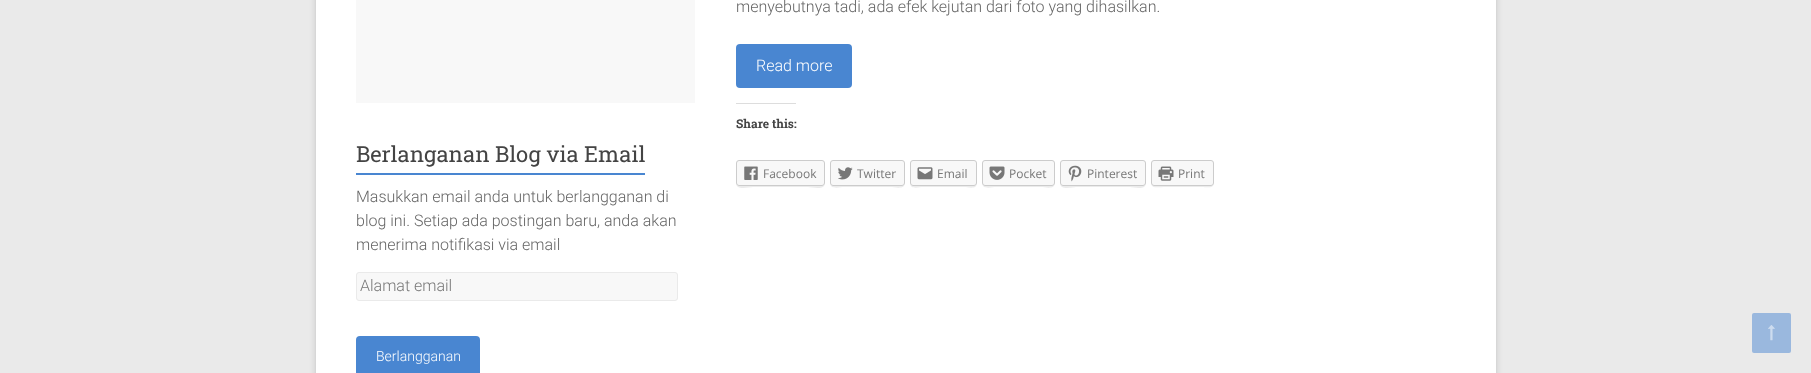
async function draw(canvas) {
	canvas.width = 1811;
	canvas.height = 373;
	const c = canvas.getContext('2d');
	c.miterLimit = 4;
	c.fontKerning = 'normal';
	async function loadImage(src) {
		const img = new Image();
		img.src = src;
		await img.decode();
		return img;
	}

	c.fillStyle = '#eaeaea';
	c.fillRect(0, 0, 1811, 373);
	c.fillStyle = '#6464644d';
	c.filter = 'blur(3px)';
	c.beginPath();
	c.rect(316, -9, 1180, 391);
	c.fill();
	c.filter = 'none';
	c.fillStyle = '#fff';
	c.fillRect(316, 0, 1180, 373);
	c.font = '300 16px Roboto';
	c.fillStyle = '#666';
	c.fillText('menyebutnya tadi, ada efek kejutan dari foto yang dihasilkan.', 736, 12);
	c.fillStyle = '#4986d1';
	c.beginPath();
	c.roundRect(736, 44, 116, 44, 4);
	c.fill();
	c.fillStyle = '#fff';
	c.fillText('Read more', 756, 71);
	c.fillStyle = '#ddd';
	c.fillRect(736, 103, 60, 1);
	c.font = 'bold 12px Roboto Slab';
	c.fillStyle = '#444';
	c.fillText('Share this:', 736, 128);
	c.fillStyle = '#ebebeb';
	c.beginPath();
	c.moveTo(736, 183);
	c.bezierCurveTo(736, 191, 749, 187, 753, 187);
	c.lineTo(808, 187);
	c.bezierCurveTo(812, 187, 825, 191, 825, 183);
	c.bezierCurveTo(825, 185, 824, 186, 822, 186);
	c.lineTo(739, 186);
	c.bezierCurveTo(737, 186, 736, 185, 736, 183);
	c.closePath();
	c.fill();
	c.fillStyle = '#f8f8f8';
	c.beginPath();
	c.roundRect(736.5, 160.5, 88, 25, 2.5);
	c.fill();
	c.strokeStyle = '#ccc';
	c.stroke();
	c.drawImage(await loadImage('img1.png'), 744, 166, 14, 14);
	c.font = '12px Open Sans';
	c.fillStyle = '#777';
	c.fillText('Facebook', 763, 178);
	c.fillStyle = '#ebebeb';
	c.beginPath();
	c.moveTo(830, 183);
	c.bezierCurveTo(830, 190, 840, 187, 844, 187);
	c.lineTo(890, 187);
	c.bezierCurveTo(895, 187, 905, 190, 905, 183);
	c.bezierCurveTo(905, 185, 904, 186, 902, 186);
	c.lineTo(833, 186);
	c.bezierCurveTo(831, 186, 830, 185, 830, 183);
	c.closePath();
	c.fill();
	c.fillStyle = '#f8f8f8';
	c.beginPath();
	c.roundRect(830.5, 160.5, 74, 25, 2.5);
	c.fill();
	c.stroke();
	c.drawImage(await loadImage('img2.png'), 838, 167, 15, 13);
	c.fillStyle = '#777';
	c.fillText('Twitter', 857, 178);
	c.fillStyle = '#ebebeb';
	c.beginPath();
	c.moveTo(910, 183);
	c.bezierCurveTo(910, 190, 919, 187, 923, 187);
	c.lineTo(964, 187);
	c.bezierCurveTo(968, 187, 977, 190, 977, 183);
	c.bezierCurveTo(977, 185, 976, 186, 974, 186);
	c.lineTo(913, 186);
	c.bezierCurveTo(911, 186, 910, 185, 910, 183);
	c.closePath();
	c.fill();
	c.fillStyle = '#f8f8f8';
	c.beginPath();
	c.roundRect(910.5, 160.5, 66, 25, 2.5);
	c.fill();
	c.stroke();
	c.drawImage(await loadImage('img3.png'), 917, 167, 16, 13);
	c.fillStyle = '#777';
	c.fillText('Email', 937, 178);
	c.fillStyle = '#ebebeb';
	c.beginPath();
	c.moveTo(982, 183);
	c.bezierCurveTo(982, 190, 992, 187, 996, 187);
	c.lineTo(1041, 187);
	c.bezierCurveTo(1045, 187, 1055, 190, 1055, 183);
	c.bezierCurveTo(1055, 185, 1054, 186, 1052, 186);
	c.lineTo(985, 186);
	c.bezierCurveTo(983, 186, 982, 185, 982, 183);
	c.closePath();
	c.fill();
	c.fillStyle = '#f8f8f8';
	c.beginPath();
	c.roundRect(982.5, 160.5, 72, 25, 2.5);
	c.fill();
	c.stroke();
	c.drawImage(await loadImage('img4.png'), 989, 166, 16, 14);
	c.fillStyle = '#777';
	c.fillText('Pocket', 1009, 178);
	c.fillStyle = '#ebebeb';
	c.beginPath();
	c.moveTo(1060, 183);
	c.bezierCurveTo(1060, 191, 1073, 187, 1076, 187);
	c.lineTo(1130, 187);
	c.bezierCurveTo(1133, 187, 1146, 191, 1146, 183);
	c.bezierCurveTo(1146, 185, 1145, 186, 1143, 186);
	c.lineTo(1063, 186);
	c.bezierCurveTo(1061, 186, 1060, 185, 1060, 183);
	c.closePath();
	c.fill();
	c.fillStyle = '#f8f8f8';
	c.beginPath();
	c.roundRect(1060.5, 160.5, 85, 25, 2.5);
	c.fill();
	c.stroke();
	c.drawImage(await loadImage('img5.png'), 1068, 165, 14, 17);
	c.fillStyle = '#777';
	c.fillText('Pinterest', 1087, 178);
	c.fillStyle = '#ebebeb';
	c.beginPath();
	c.moveTo(1151, 183);
	c.bezierCurveTo(1151, 189, 1159, 187, 1164, 187);
	c.lineTo(1202, 187);
	c.bezierCurveTo(1206, 187, 1214, 189, 1214, 183);
	c.bezierCurveTo(1214, 185, 1213, 186, 1211, 186);
	c.lineTo(1154, 186);
	c.bezierCurveTo(1152, 186, 1151, 185, 1151, 183);
	c.closePath();
	c.fill();
	c.fillStyle = '#f8f8f8';
	c.beginPath();
	c.roundRect(1151.5, 160.5, 62, 25, 2.5);
	c.fill();
	c.stroke();
	c.drawImage(await loadImage('img6.png'), 1158, 166, 16, 15);
	c.fillStyle = '#777';
	c.fillText('Print', 1178, 178);
	c.fillStyle = '#f8f8f8';
	c.fillRect(356, 0, 339, 103);
	c.font = '22px Roboto Slab';
	c.fillStyle = '#444';
	c.fillText('Berlanganan Blog via Email', 356, 162);
	c.fillStyle = '#4986d1';
	c.fillRect(356, 173, 289, 2);
	c.font = '300 16px Roboto';
	c.fillStyle = '#666';
	for (const [text, x, y] of [
		['Masukkan email anda untuk berlangganan di', 356, 202],
		['blog ini. Setiap ada postingan baru, anda akan', 356, 226],
		['menerima notifikasi via email', 356, 250],
	]) {
		c.fillText(text, x, y);
	}
	c.fillStyle = '#f8f8f8';
	c.beginPath();
	c.roundRect(356.5, 272.5, 321, 28, 2.5);
	c.fill();
	c.strokeStyle = '#eaeaea';
	c.stroke();
	c.fillStyle = '#777';
	c.fillText('Alamat email', 360, 291);
	c.fillStyle = '#4986d1';
	c.beginPath();
	c.roundRect(356, 336, 124, 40, 4);
	c.fill();
	c.font = '300 14px Roboto';
	c.fillStyle = '#fff';
	c.fillText('Berlangganan', 376, 361);
	c.fillStyle = '#9ab8de';
	c.beginPath();
	c.roundRect(1752, 313, 39, 40, 2);
	c.fill();
	c.drawImage(await loadImage('img7.png'), 1768, 325, 7, 16);
}

draw(document.querySelector('canvas'));
